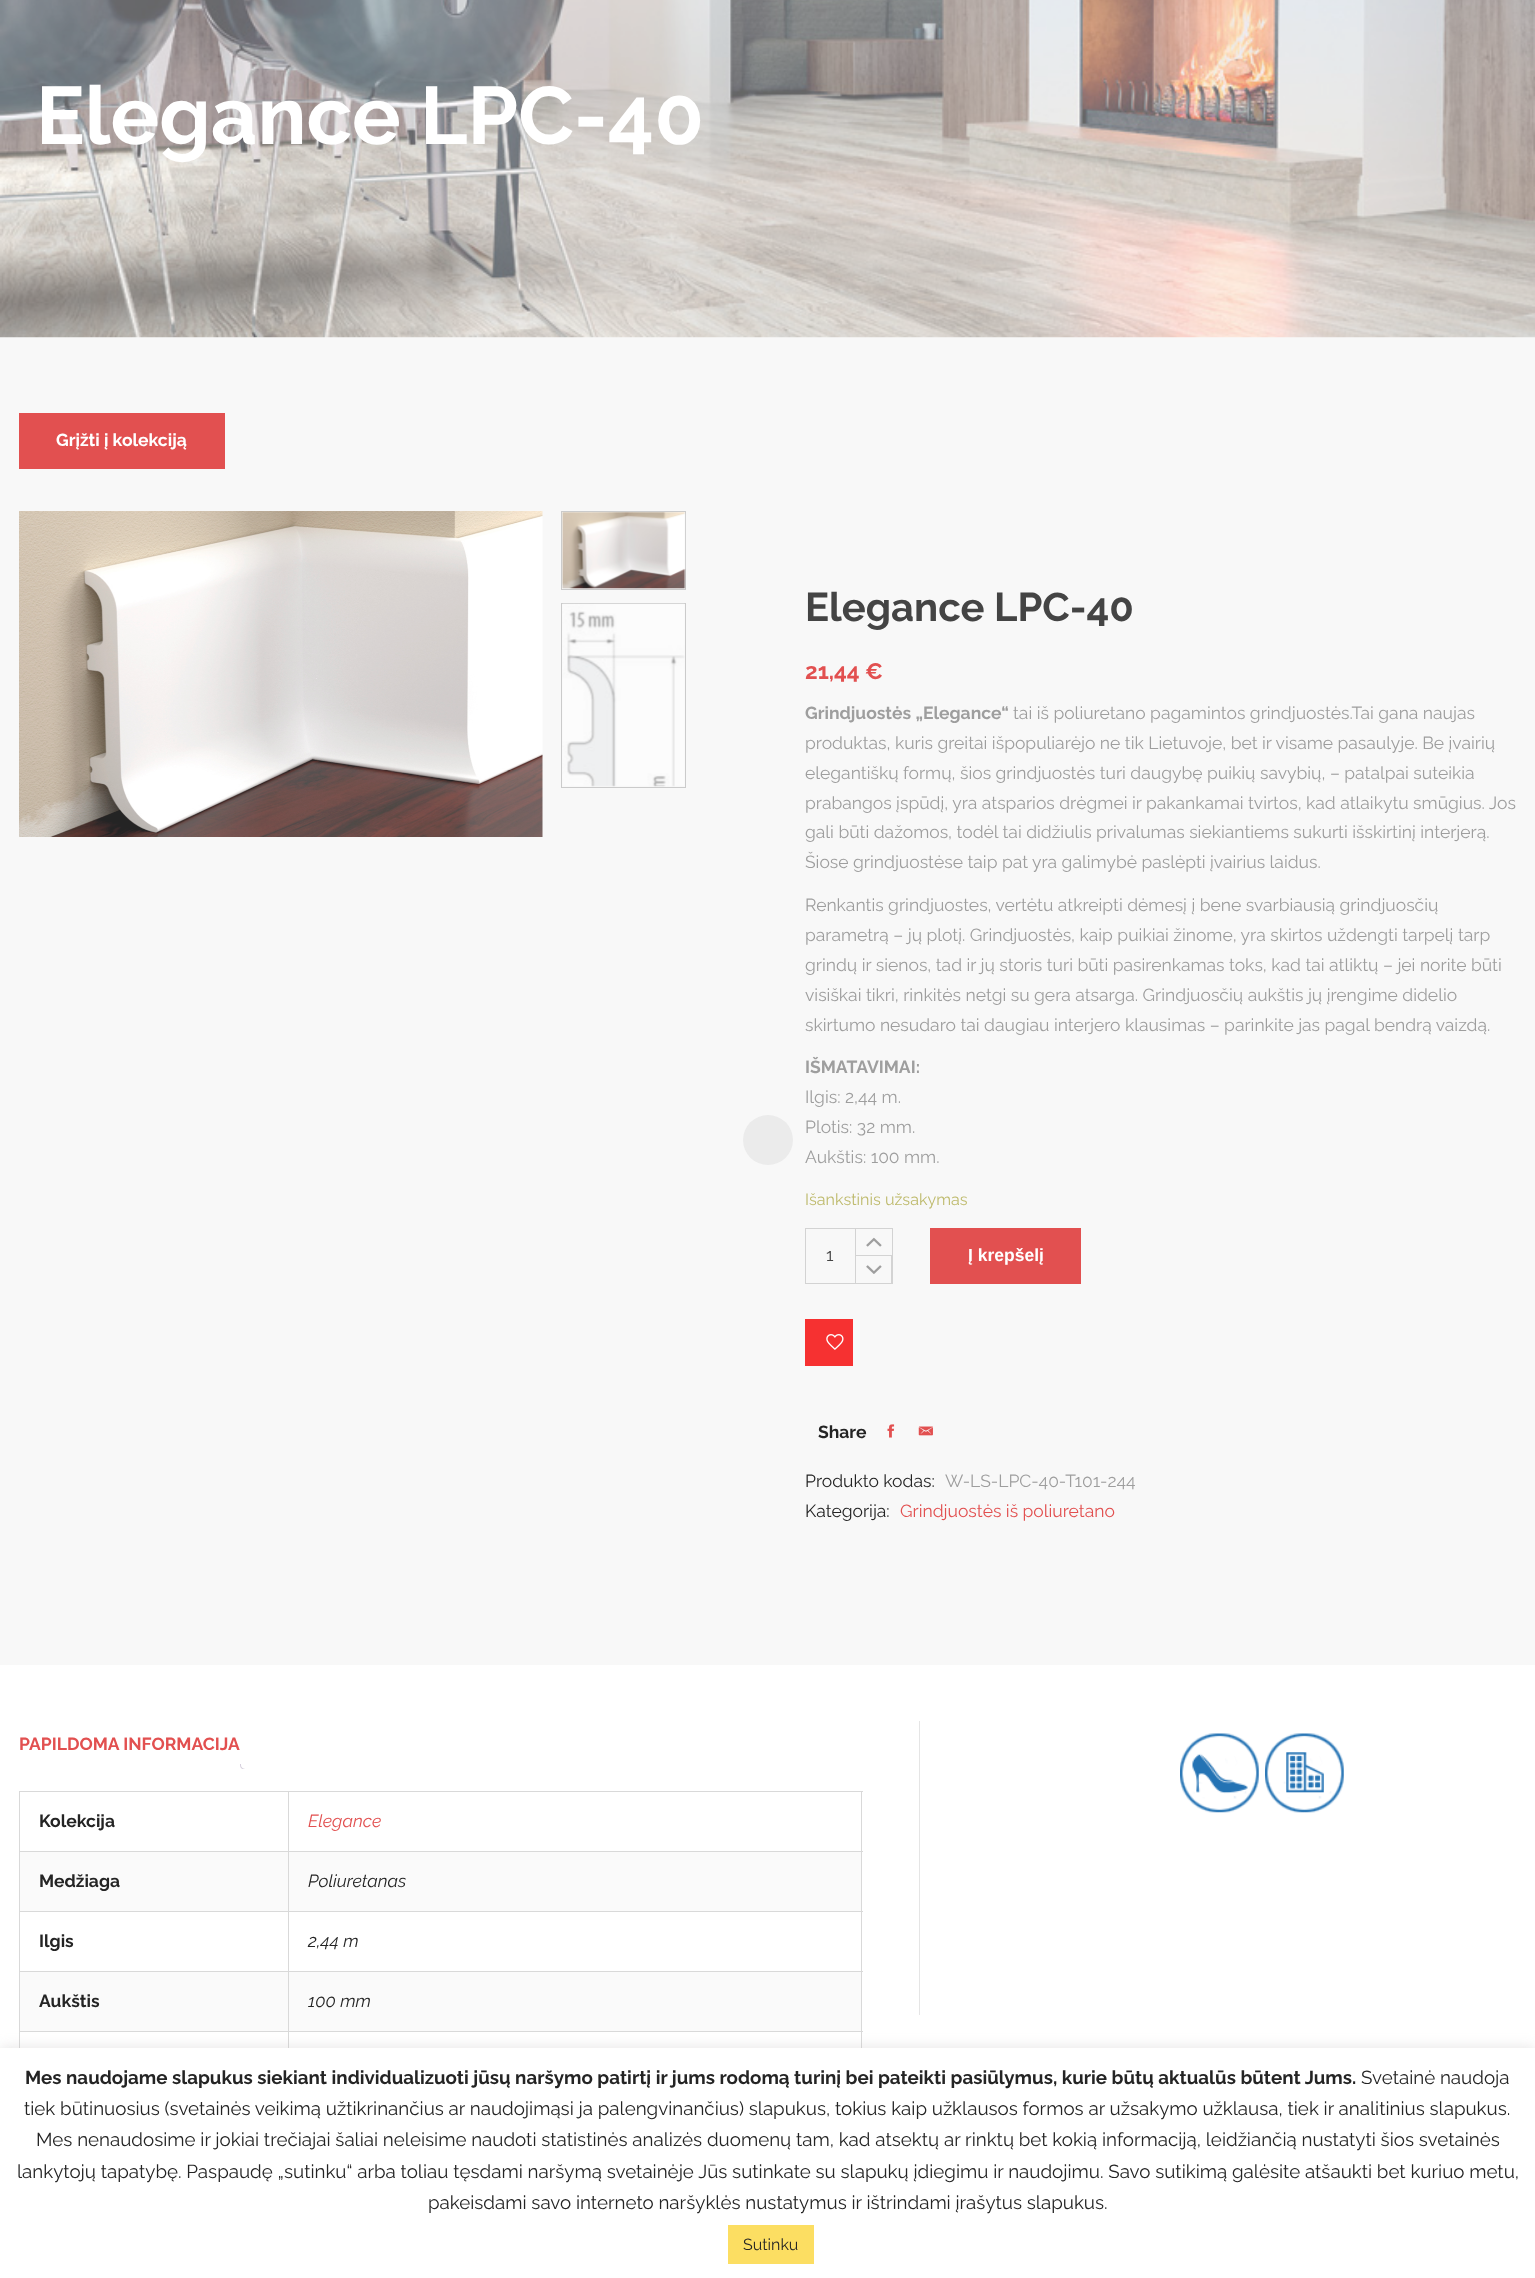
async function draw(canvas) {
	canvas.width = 1535;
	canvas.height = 2278;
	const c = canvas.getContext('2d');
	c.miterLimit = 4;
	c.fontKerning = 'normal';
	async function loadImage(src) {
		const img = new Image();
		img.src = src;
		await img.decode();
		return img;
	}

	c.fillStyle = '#fff';
	c.fillRect(0, 0, 1535, 2278);
	c.fillStyle = '#f9f9f9';
	c.fillRect(0, 337, 1535, 1);
	c.drawImage(await loadImage('img1.png'), 0, 0, 1535, 338);
	c.font = 'bold 81.25px Raleway';
	c.fillStyle = '#fff';
	c.fillText('Elegance LPC-40', 36, 144);
	c.fillStyle = '#f8f8f8';
	c.fillRect(0, 338, 1535, 1327);
	c.fillStyle = '#e25050';
	c.fillRect(19, 413, 206, 56);
	c.font = 'bold 17.5px Raleway';
	c.fillStyle = '#fff';
	c.fillText('Grįžti į kolekciją', 56, 446);
	c.drawImage(await loadImage('img2.png'), 19, 511, 524, 326);
	c.strokeStyle = '#cbcbcb';
	c.strokeRect(561.5, 511.5, 124, 78);
	c.drawImage(await loadImage('img3.png'), 562, 512, 124, 77);
	c.strokeRect(561.5, 603.5, 124, 184);
	c.drawImage(await loadImage('img4.png'), 562, 603, 123, 184);
	c.font = 'bold 40px Raleway';
	c.fillStyle = '#444';
	c.fillText('Elegance LPC-40', 805, 621);
	c.font = 'bold 22.5px Raleway';
	c.fillStyle = '#e25050';
	c.fillText('21,44 €', 805, 679);
	c.font = 'bold 17.5px Raleway';
	c.fillStyle = '#9e9e9e';
	c.fillText('Grindjuostės „Elegance“', 805, 719);
	c.font = '17.5px Raleway';
	for (const [text, x, y] of [
		['tai iš poliuretano pagamintos grindjuostės.Tai gana naujas', 1013, 719],
		['produktas, kuris greitai išpopuliarėjo ne tik Lietuvoje, bet ir visame pasaulyje. Be įvairių', 805, 749],
		['elegantiškų formų, šios grindjuostės turi daugybę puikių savybių, – patalpai suteikia', 805, 779],
		['prabangos įspūdį, yra atsparios drėgmei ir pakankamai tvirtos, kad atlaikytu smūgius. Jos', 805, 809],
		['gali būti dažomos, todėl tai didžiulis privalumas siekiantiems sukurti išskirtinį interjerą.', 805, 838],
		['Šiose grindjuostėse taip pat yra galimybė paslėpti įvairius laidus.', 805, 868],
		['Renkantis grindjuostes, vertėtu atkreipti dėmesį į bene svarbiausią grindjuosčių', 805, 911],
		['parametrą – jų plotį. Grindjuostės, kaip puikiai žinome, yra skirtos uždengti tarpelį tarp', 805, 941],
		['grindų ir sienos, tad ir jų storis turi būti pasirenkamas toks, kad tai atliktų – jei norite būti', 805, 971],
		['visiškai tikri, rinkitės netgi su gera atsarga. Grindjuosčių aukštis jų įrengime didelio', 805, 1001],
		['skirtumo nesudaro tai daugiau interjero klausimas – parinkite jas pagal bendrą vaizdą.', 805, 1031],
	]) {
		c.fillText(text, x, y);
	}
	c.font = 'bold 17.5px Raleway';
	c.fillText('IŠMATAVIMAI:', 805, 1073);
	c.font = '17.5px Raleway';
	for (const [text, x, y] of [
		['Ilgis: 2,44 m.', 805, 1103],
		['Plotis: 32 mm.', 805, 1133],
		['Aukštis: 100 mm.', 805, 1163],
	]) {
		c.fillText(text, x, y);
	}
	c.font = '16.1px Raleway';
	c.fillStyle = '#beba6c';
	c.fillText('Išankstinis užsakymas', 805, 1205);
	c.strokeStyle = '#d3d3d3';
	c.strokeRect(805.5, 1228.5, 87, 55);
	c.font = '17.5px Raleway';
	c.fillStyle = '#444';
	c.fillText('1', 826, 1261);
	c.strokeRect(855.5, 1228.5, 37, 27);
	c.drawImage(await loadImage('img5.png'), 866, 1237, 16, 10);
	c.fillStyle = '#d3d3d3';
	c.fillRect(891, 1256, 1, 28);
	c.fillRect(855, 1256, 1, 28);
	c.drawImage(await loadImage('img6.png'), 866, 1265, 16, 9);
	c.fillStyle = '#e25050';
	c.fillRect(930, 1228, 151, 56);
	c.font = 'bold 17.5px Liberation Sans';
	c.fillStyle = '#fff';
	c.fillText('Į krepšelį', 968, 1261);
	c.fillStyle = '#f63131';
	c.fillRect(805, 1319, 48, 47);
	c.drawImage(await loadImage('img7.png'), 826, 1334, 18, 16);
	c.font = 'bold 17.5px Raleway';
	c.fillStyle = '#242424';
	c.fillText('Share', 818, 1438);
	c.drawImage(await loadImage('img8.png'), 887, 1424, 8, 14);
	c.drawImage(await loadImage('img9.png'), 918, 1426, 15, 10);
	c.font = '17.5px Raleway';
	c.fillText('Produkto kodas:', 805, 1487);
	c.fillStyle = '#9e9e9e';
	c.fillText('W-LS-LPC-40-T101-244', 945, 1487);
	c.fillStyle = '#242424';
	c.fillText('Kategorija:', 805, 1517);
	c.fillStyle = '#e25050';
	c.fillText('Grindjuostės iš poliuretano', 900, 1517);
	c.font = 'bold 17.5px Raleway';
	c.fillText('PAPILDOMA INFORMACIJA', 19, 1750);
	c.save();
	c.beginPath();
	c.rect(19, 1721, 881, 48);
	c.clip();
	c.fillStyle = '#d6d0dd';
	c.beginPath();
	c.moveTo(240, 1764);
	c.lineTo(246, 1764);
	c.lineTo(246, 1770);
	c.bezierCurveTo(243, 1770, 240, 1768.5, 240, 1765);
	c.closePath();
	c.moveTo(241, 1764);
	c.lineTo(246, 1764);
	c.lineTo(246, 1769);
	c.bezierCurveTo(244, 1769, 241, 1768, 241, 1765);
	c.closePath();
	c.fill('evenodd');
	c.restore();
	for (const [x, y, w, h, color] of [
		[19, 1791, 844, 1, '#d9d9d9'],
		[861, 1791, 1, 257, '#d9d9d9'],
		[19, 1791, 1, 257, '#d9d9d9'],
	]) {
		c.fillStyle = color;
		c.fillRect(x, y, w, h);
	}
	c.fillStyle = '#242424';
	c.fillText('Kolekcija', 39, 1827);
	for (const [x, y, w, h, color] of [
		[288, 1851, 575, 1, '#d9d9d9'],
		[288, 1911, 575, 1, '#d9d9d9'],
		[288, 1971, 575, 1, '#d9d9d9'],
		[288, 2031, 575, 1, '#d9d9d9'],
		[288, 2031, 1, 17, '#d9d9d9'],
		[19, 2031, 270, 1, '#d9d9d9'],
		[288, 1971, 1, 62, '#d9d9d9'],
		[19, 1971, 270, 1, '#d9d9d9'],
		[288, 1911, 1, 62, '#d9d9d9'],
		[19, 1911, 270, 1, '#d9d9d9'],
		[288, 1851, 1, 62, '#d9d9d9'],
		[19, 1851, 270, 1, '#d9d9d9'],
		[288, 1791, 1, 62, '#d9d9d9'],
	]) {
		c.fillStyle = color;
		c.fillRect(x, y, w, h);
	}
	c.font = 'italic 17.5px Raleway';
	c.fillStyle = '#e25050';
	c.fillText('Elegance', 308, 1827);
	c.fillStyle = '#fafafa';
	c.fillRect(20, 1852, 268, 59);
	c.font = 'bold 17.5px Raleway';
	c.fillStyle = '#242424';
	c.fillText('Medžiaga', 39, 1887);
	c.fillStyle = '#fafafa';
	c.fillRect(289, 1852, 572, 59);
	c.font = 'italic 17.5px Raleway';
	c.fillStyle = '#242424';
	c.fillText('Poliuretanas', 308, 1887);
	c.font = 'bold 17.5px Raleway';
	c.fillText('Ilgis', 39, 1947);
	c.font = 'italic 17.5px Raleway';
	c.fillText('2,44 m', 308, 1947);
	c.fillStyle = '#fafafa';
	c.fillRect(20, 1972, 268, 59);
	c.font = 'bold 17.5px Raleway';
	c.fillStyle = '#242424';
	c.fillText('Aukštis', 39, 2007);
	c.fillStyle = '#fafafa';
	c.fillRect(289, 1972, 572, 59);
	c.font = 'italic 17.5px Raleway';
	c.fillStyle = '#242424';
	c.fillText('100 mm', 308, 2007);
	c.fillStyle = '#e5e5e5';
	c.fillRect(919, 1721, 1, 294);
	c.drawImage(await loadImage('img10.png'), 1180, 1733, 79, 80);
	c.drawImage(await loadImage('img11.png'), 1265, 1733, 79, 80);
	c.fillStyle = '#ebebeb';
	c.beginPath();
	c.arc(768, 1140, 25, 0, 2 * Math.PI);
	c.fill();
	c.fillStyle = '#b8b7b74d';
	c.filter = 'blur(6px)';
	c.beginPath();
	c.rect(0, 2046, 1535, 232);
	c.fill();
	c.filter = 'none';
	c.fillStyle = '#fff';
	c.fillRect(0, 2048, 1535, 230);
	c.font = 'bold 18.75px Raleway';
	c.fillStyle = '#242424';
	c.fillText('Mes naudojame slapukus siekiant individualizuoti jūsų naršymo patirtį ir jums rodomą turinį bei pateikti pasiūlymus, kurie būtų aktualūs būtent Jums.', 25, 2084);
	c.font = '18.75px Raleway';
	for (const [text, x, y] of [
		['Svetainė naudoja', 1361, 2084],
		['tiek būtinuosius (svetainės veikimą užtikrinančius ar naudojimąsi ja palengvinančius) slapukus, tokius kaip užklausos formos ar užsakymo užklausa, tiek ir analitinius slapukus.', 24, 2115],
		['Mes nenaudosime ir jokiai trečiajai šaliai neleisime naudoti statistinės analizės duomenų tam, kad atsektų ar rinktų bet kokią informaciją, leidžiančią nustatyti šios svetainės', 36, 2146],
		['lankytojų tapatybę. Paspaudę „sutinku“ arba toliau tęsdami naršymą svetainėje Jūs sutinkate su slapukų įdiegimu ir naudojimu. Savo sutikimą galėsite atšaukti bet kuriuo metu,', 17, 2178],
		['pakeisdami savo interneto naršyklės nustatymus ir ištrindami įrašytus slapukus.', 428, 2209],
	]) {
		c.fillText(text, x, y);
	}
	c.fillStyle = '#fcde62';
	c.fillRect(728, 2225, 86, 39);
	c.font = '16px Raleway';
	c.fillStyle = '#242424';
	c.fillText('Sutinku', 743, 2250);
}

draw(document.querySelector('canvas'));
